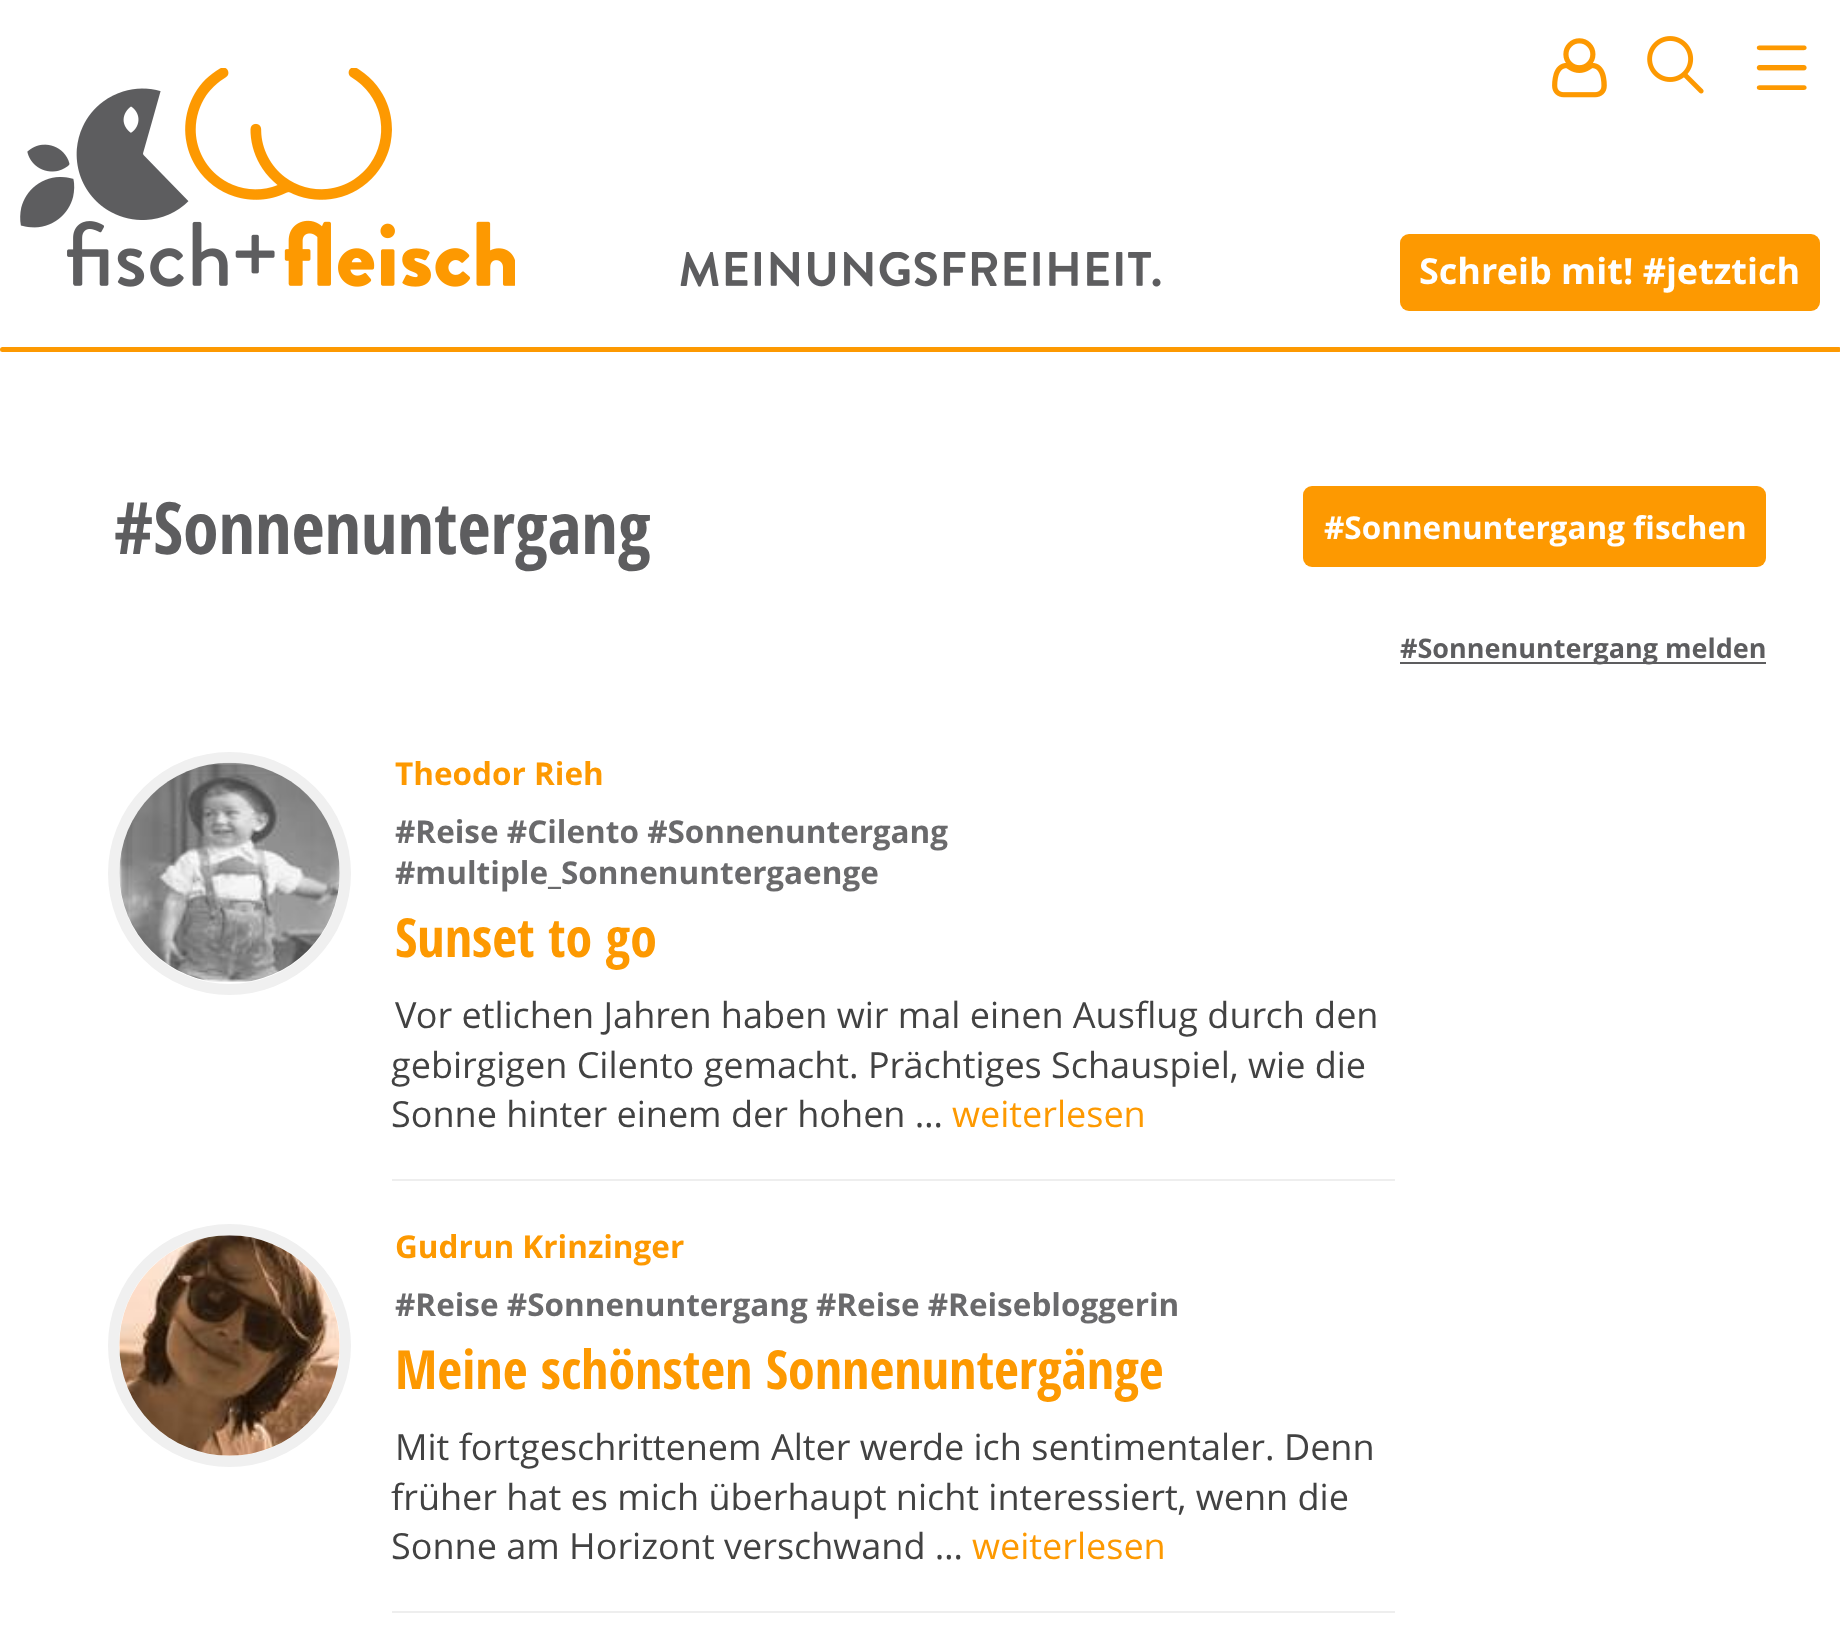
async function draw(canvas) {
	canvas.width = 1840;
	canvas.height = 1643;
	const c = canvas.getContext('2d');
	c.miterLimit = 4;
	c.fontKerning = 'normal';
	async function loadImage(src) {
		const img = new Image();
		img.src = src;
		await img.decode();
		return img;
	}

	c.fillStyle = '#fff';
	c.fillRect(0, 0, 1840, 1643);
	c.drawImage(await loadImage('img1.png'), 680, 252, 481, 35);
	c.drawImage(await loadImage('img2.png'), 20, 68, 495, 219);
	c.drawImage(await loadImage('img3.png'), 1552, 38, 55, 60);
	c.drawImage(await loadImage('img4.png'), 1647, 36, 57, 58);
	c.drawImage(await loadImage('img5.png'), 1756, 45, 51, 45);
	c.fillStyle = '#fd9901';
	c.beginPath();
	c.roundRect(1400, 234, 420, 77, 9);
	c.fill();
	c.font = 'bold 36px Open Sans';
	c.fillStyle = '#fff';
	c.fillText('Schreib mit! #jetztich', 1419, 284);
	c.fillStyle = '#fd9901';
	c.beginPath();
	c.roundRect(0, 347, 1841, 5, 2.5);
	c.fill();
	c.font = 'bold 72px Open Sans Condensed';
	c.fillStyle = '#5d5d5f';
	c.fillText('#Sonnenuntergang', 114, 554);
	c.fillStyle = '#fd9901';
	c.beginPath();
	c.roundRect(1303, 486, 463, 81, 9);
	c.fill();
	c.font = 'bold 31.5px Open Sans';
	c.fillStyle = '#fff';
	c.fillText('#Sonnenuntergang fischen', 1324, 539);
	c.fillStyle = '#5d5d5f';
	c.fillRect(1400, 662, 366, 2);
	c.font = 'bold 27px Open Sans';
	c.fillText('#Sonnenuntergang melden', 1400, 658);
	c.beginPath();
	c.arc(229.5, 873.5, 116, 0, 2 * Math.PI);
	c.strokeStyle = '#f0f0f0';
	c.lineWidth = 11;
	c.stroke();
	c.drawImage(await loadImage('img6.png'), 119, 762, 221, 220);
	c.font = 'bold 31.5px Open Sans';
	c.fillStyle = '#fd9901';
	c.fillText('Theodor Rieh', 395, 785);
	c.fillStyle = '#6a6a6c';
	c.fillText('#Reise #Cilento #Sonnenuntergang', 395, 843);
	c.fillText('#multiple_Sonnenuntergaenge', 395, 884);
	c.font = 'bold 54px Open Sans Condensed';
	c.fillStyle = '#fd9901';
	c.fillText('Sunset to go', 395, 957);
	c.fillStyle = '#eee';
	c.fillRect(392, 1179, 1003, 2);
	c.font = '36px Open Sans';
	c.fillStyle = '#424242';
	for (const [text, x, y] of [
		['Vor etlichen Jahren haben wir mal einen Ausflug durch den', 395, 1028],
		['gebirgigen Cilento gemacht. Prächtiges Schauspiel, wie die', 391, 1078],
		['Sonne hinter einem der hohen …', 391, 1127],
	]) {
		c.fillText(text, x, y);
	}
	c.fillStyle = '#fd9901';
	c.fillText('weiterlesen', 952, 1127);
	c.beginPath();
	c.arc(229.5, 1345.5, 116, 0, 2 * Math.PI);
	c.stroke();
	c.drawImage(await loadImage('img7.png'), 119, 1235, 221, 221);
	c.font = 'bold 31.5px Open Sans';
	c.fillText('Gudrun Krinzinger', 395, 1258);
	c.fillStyle = '#6a6a6c';
	c.fillText('#Reise #Sonnenuntergang #Reise #Reisebloggerin', 395, 1316);
	c.font = 'bold 54px Open Sans Condensed';
	c.fillStyle = '#fd9901';
	c.fillText('Meine schönsten Sonnenuntergänge', 395, 1389);
	c.fillStyle = '#eee';
	c.fillRect(392, 1611, 1003, 2);
	c.font = '36px Open Sans';
	c.fillStyle = '#424242';
	for (const [text, x, y] of [
		['Mit fortgeschrittenem Alter werde ich sentimentaler. Denn', 395, 1460],
		['früher hat es mich überhaupt nicht interessiert, wenn die', 391, 1510],
		['Sonne am Horizont verschwand …', 391, 1559],
	]) {
		c.fillText(text, x, y);
	}
	c.fillStyle = '#fd9901';
	c.fillText('weiterlesen', 972, 1559);
}

draw(document.querySelector('canvas'));
